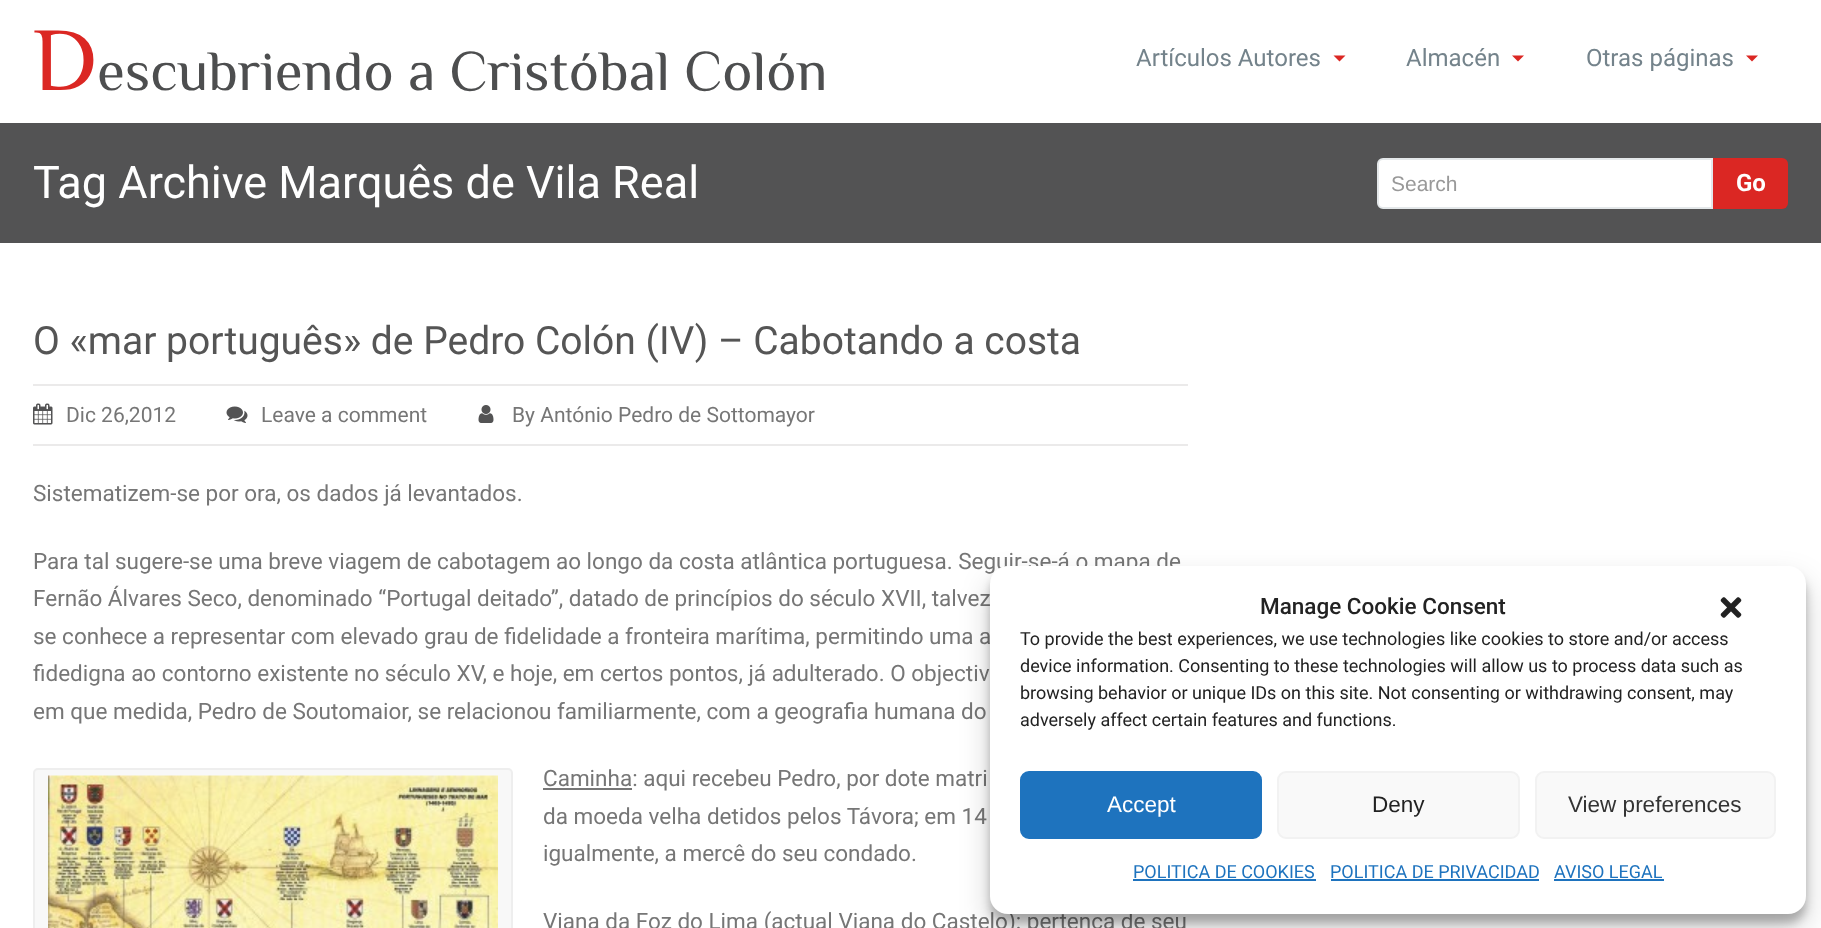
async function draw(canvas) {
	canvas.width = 1821;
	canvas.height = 928;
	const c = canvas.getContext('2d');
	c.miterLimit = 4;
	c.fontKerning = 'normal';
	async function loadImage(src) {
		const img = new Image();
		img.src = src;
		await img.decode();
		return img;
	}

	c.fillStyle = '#fff';
	c.fillRect(0, 0, 1821, 928);
	c.font = '90px Philosopher';
	c.fillStyle = '#db2723';
	c.fillText('D', 33, 90);
	c.font = '57px Philosopher';
	c.fillStyle = '#4d4e4f';
	c.fillText('escubriendo a Cristóbal Colón', 97, 90);
	c.font = '24px Roboto';
	c.fillStyle = '#74838b';
	c.fillText('Artículos Autores', 1136, 66);
	c.fillStyle = '#db2723';
	c.beginPath();
	c.moveTo(1333.5, 55.5);
	c.lineTo(1345.5, 55.5);
	c.lineTo(1339.5, 61.5);
	c.closePath();
	c.fill();
	c.fillStyle = '#74838b';
	c.fillText('Almacén', 1406, 66);
	c.fillStyle = '#db2723';
	c.beginPath();
	c.moveTo(1512, 55.5);
	c.lineTo(1524, 55.5);
	c.lineTo(1518, 61.5);
	c.closePath();
	c.fill();
	c.fillStyle = '#74838b';
	c.fillText('Otras páginas', 1586, 66);
	c.fillStyle = '#db2723';
	c.beginPath();
	c.moveTo(1746, 55.5);
	c.lineTo(1758, 55.5);
	c.lineTo(1752, 61.5);
	c.closePath();
	c.fill();
	c.fillStyle = '#535354';
	c.fillRect(0, 123, 1821, 120);
	c.font = '45px Roboto';
	c.fillStyle = '#fff';
	c.fillText('Tag Archive Marquês de Vila Real', 33, 198);
	c.beginPath();
	c.roundRect(1378, 159, 334, 49, [5, 0, 0, 5]);
	c.fill();
	c.strokeStyle = '#e4e8ea';
	c.lineWidth = 2;
	c.stroke();
	c.font = '21px Liberation Sans';
	c.fillStyle = '#999';
	c.fillText('Search', 1391, 191);
	c.fillStyle = '#db2723';
	c.beginPath();
	c.roundRect(1713, 158, 75, 51, [0, 6, 6, 0]);
	c.fill();
	c.font = 'bold 24px Roboto';
	c.fillStyle = '#fff';
	c.fillText('Go', 1736, 191);
	c.font = '39px Roboto';
	c.fillStyle = '#555';
	c.fillText('O «mar português» de Pedro Colón (IV) – Cabotando a costa', 33, 354);
	c.fillStyle = '#ebeaea';
	c.fillRect(33, 384, 1155, 2);
	c.fillRect(33, 444, 1155, 2);
	c.drawImage(await loadImage('img1.png'), 33, 403, 20, 22);
	c.font = '21px Roboto';
	c.fillStyle = '#767676';
	c.fillText('Dic 26,2012', 66, 422);
	c.drawImage(await loadImage('img2.png'), 226, 406, 22, 17);
	c.fillText('Leave a comment', 261, 422);
	c.drawImage(await loadImage('img3.png'), 478, 405, 16, 18);
	c.fillText('By António Pedro de Sottomayor', 512, 422);
	c.font = '22.5px Roboto';
	for (const [text, x, y] of [
		['Sistematizem-se por ora, os dados já levantados.', 33, 501],
		['Para tal sugere-se uma breve viagem de cabotagem ao longo da costa atlântica portuguesa. Seguir-se-á o mapa de', 33, 569],
		['Fernão Álvares Seco, denominado “Portugal deitado”, datado de princípios do século XVII, talvez', 33, 606],
		['se conhece a representar com elevado grau de fidelidade a fronteira marítima, permitindo uma a', 33, 644],
		['fidedigna ao contorno existente no século XV, e hoje, em certos pontos, já adulterado. O objectiv', 33, 681],
		['em que medida, Pedro de Soutomaior, se relacionou familiarmente, com a geografia humana do', 33, 719],
	]) {
		c.fillText(text, x, y);
	}
	c.fillStyle = '#f8f8f8';
	c.beginPath();
	c.roundRect(34, 769, 478, 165, 4);
	c.fill();
	c.strokeStyle = '#eee';
	c.stroke();
	c.drawImage(await loadImage('img4.png'), 48, 775, 450, 153);
	c.fillStyle = '#767676';
	c.fillRect(543, 788, 89, 2);
	for (const [text, x, y] of [
		['Caminha: aqui recebeu Pedro, por dote matri', 543, 786],
		['da moeda velha detidos pelos Távora; em 14', 543, 824],
		['igualmente, a mercê do seu condado.', 543, 861],
		['Viana da Foz do Lima (actual Viana do Castelo): pertença de seu', 543, 929],
	]) {
		c.fillText(text, x, y);
	}
	c.fillStyle = '#0000003b';
	c.filter = 'blur(4.5px)';
	c.beginPath();
	c.roundRect(990, 575, 816, 348, 18);
	c.fill();
	c.filter = 'none';
	c.fillStyle = '#00000030';
	c.filter = 'blur(15px)';
	c.beginPath();
	c.roundRect(990, 581, 816, 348, 18);
	c.fill();
	c.filter = 'none';
	c.fillStyle = '#fff';
	c.beginPath();
	c.roundRect(990, 566, 816, 348, 18);
	c.fill();
	c.font = '500 22.5px Roboto';
	c.fillStyle = '#222';
	c.fillText('Manage Cookie Consent', 1260, 614);
	c.drawImage(await loadImage('img5.png'), 1720, 597, 22, 21);
	c.font = '18px Roboto';
	for (const [text, x, y] of [
		['To provide the best experiences, we use technologies like cookies to store and/or access', 1020, 645],
		['device information. Consenting to these technologies will allow us to process data such as', 1020, 672],
		['browsing behavior or unique IDs on this site. Not consenting or withdrawing consent, may', 1020, 699],
		['adversely affect certain features and functions.', 1020, 726],
	]) {
		c.fillText(text, x, y);
	}
	c.fillStyle = '#1e73be';
	c.beginPath();
	c.roundRect(1021, 772, 240, 66, 8);
	c.fill();
	c.strokeStyle = '#1e73be';
	c.stroke();
	c.font = '22.5px Liberation Sans';
	c.fillStyle = '#fff';
	c.fillText('Accept', 1107, 812);
	c.fillStyle = '#f9f9f9';
	c.beginPath();
	c.roundRect(1278, 772, 241, 66, 8);
	c.fill();
	c.strokeStyle = '#f2f2f2';
	c.stroke();
	c.fillStyle = '#222';
	c.fillText('Deny', 1372, 812);
	c.fillStyle = '#f9f9f9';
	c.beginPath();
	c.roundRect(1536, 772, 239, 66, 8);
	c.fill();
	c.stroke();
	c.fillStyle = '#333';
	c.fillText('View preferences', 1568, 812);
	c.font = '18px Roboto';
	c.fillStyle = '#1e73be';
	c.fillText('POLITICA DE COOKIES', 1133, 878);
	c.fillRect(1133, 879, 183, 2);
	c.fillText('POLITICA DE PRIVACIDAD', 1330, 878);
	c.fillRect(1331, 879, 208, 2);
	c.fillText('AVISO LEGAL', 1554, 878);
	c.fillRect(1554, 879, 110, 2);
}

draw(document.querySelector('canvas'));
